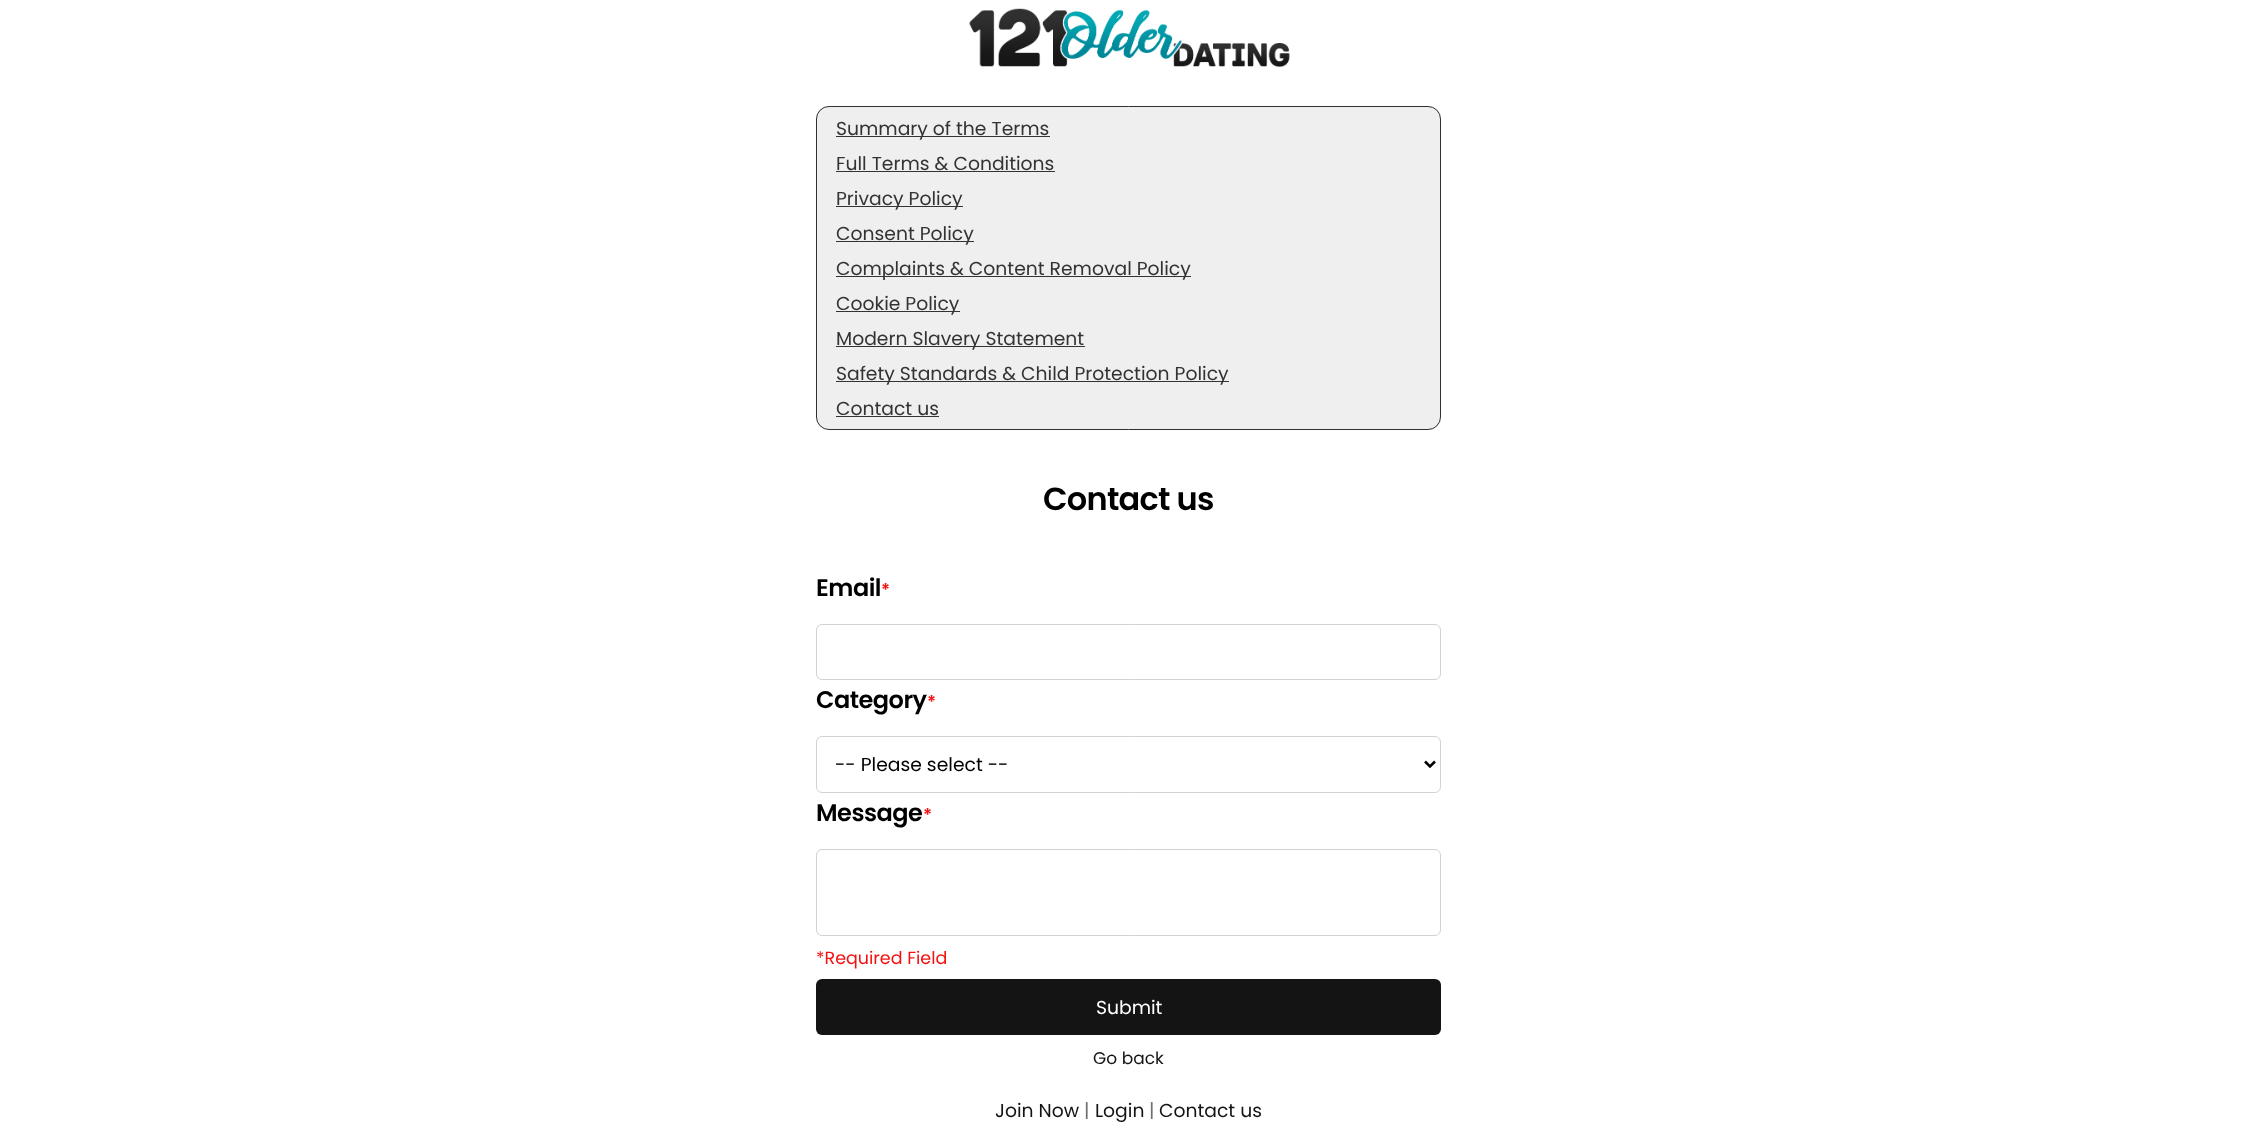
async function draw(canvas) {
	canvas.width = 2257;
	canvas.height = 1142;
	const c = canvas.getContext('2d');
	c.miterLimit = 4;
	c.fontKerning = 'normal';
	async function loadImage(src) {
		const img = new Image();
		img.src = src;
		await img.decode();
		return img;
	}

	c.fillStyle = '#fff';
	c.fillRect(0, 0, 2257, 1142);
	c.drawImage(await loadImage('img1.png'), 969, 8, 321, 60);
	c.fillStyle = '#efefef';
	c.beginPath();
	c.roundRect(816, 106, 625, 324, 13);
	c.fill();
	c.beginPath();
	c.roundRect(816.5, 106.5, 624, 323, 12.5);
	c.strokeStyle = '#141414de';
	c.stroke();
	c.fillStyle = '#333';
	c.fillRect(836, 136, 214, 1);
	c.font = '18.75px Poppins';
	c.fillText('Summary of the Terms', 836, 135);
	c.fillText('Full Terms & Conditions', 836, 170);
	c.fillRect(836, 171, 219, 1);
	c.fillRect(836, 206, 127, 1);
	c.fillText('Privacy Policy', 836, 205);
	c.fillRect(836, 241, 138, 1);
	c.fillText('Consent Policy', 836, 240);
	c.fillRect(836, 276, 355, 1);
	c.fillText('Complaints & Content Removal Policy', 836, 275);
	c.fillRect(836, 311, 124, 1);
	c.fillText('Cookie Policy', 836, 310);
	c.fillRect(836, 346, 249, 1);
	c.fillText('Modern Slavery Statement', 836, 345);
	c.fillRect(836, 381, 393, 1);
	c.fillText('Safety Standards & Child Protection Policy', 836, 380);
	c.fillText('Contact us', 836, 415);
	c.fillRect(836, 416, 103, 1);
	c.letterSpacing = '-0.75px';
	c.font = '600 32px Poppins';
	c.fillStyle = '#000';
	c.fillText('Contact us', 1043, 510);
	c.letterSpacing = '-0.5px';
	c.font = '600 24px Poppins';
	c.fillText('Email', 816, 596);
	c.font = '600 17.5px Poppins';
	c.fillStyle = '#f31212';
	c.fillText('*', 881, 596);
	c.beginPath();
	c.roundRect(816.5, 624.5, 624, 55, 5.5);
	c.strokeStyle = '#d2d2d2';
	c.stroke();
	c.font = '600 24px Poppins';
	c.fillStyle = '#000';
	c.fillText('Category', 816, 708);
	c.font = '600 17.5px Poppins';
	c.fillStyle = '#f31212';
	c.fillText('*', 927, 708);
	c.beginPath();
	c.roundRect(816.5, 736.5, 624, 56, 5.5);
	c.stroke();
	c.beginPath();
	c.moveTo(1425, 761.5);
	c.lineTo(1430, 766.5);
	c.lineTo(1435, 761.5);
	c.strokeStyle = '#000';
	c.lineWidth = 2.5;
	c.stroke();
	c.letterSpacing = '0px';
	c.font = '18.75px Poppins';
	c.fillStyle = '#000';
	c.fillText('-- Please select --', 835, 771);
	c.letterSpacing = '-0.5px';
	c.font = '600 24px Poppins';
	c.fillText('Message', 816, 821);
	c.font = '600 17.5px Poppins';
	c.fillStyle = '#f31212';
	c.fillText('*', 923, 821);
	c.beginPath();
	c.roundRect(816.5, 849.5, 624, 86, 5.5);
	c.strokeStyle = '#d2d2d2';
	c.lineWidth = 1;
	c.stroke();
	c.letterSpacing = '0px';
	c.font = '17.5px Poppins';
	c.fillText('*Required Field', 816, 964);
	c.fillStyle = '#141414';
	c.beginPath();
	c.roundRect(816, 979, 625, 56, 6);
	c.fill();
	c.font = '18.75px Poppins';
	c.fillStyle = '#fff';
	c.fillText('Submit', 1096, 1014);
	c.font = '17px Poppins';
	c.fillStyle = '#141414';
	c.fillText('Go back', 1093, 1064);
	c.font = '18.75px Poppins';
	c.fillText('Join Now', 995, 1117);
	c.fillStyle = '#707070';
	c.fillText('|', 1084, 1117);
	c.fillStyle = '#141414';
	c.fillText('Login', 1095, 1117);
	c.fillStyle = '#707070';
	c.fillText('|', 1149, 1117);
	c.fillStyle = '#141414';
	c.fillText('Contact us', 1159, 1117);
}

draw(document.querySelector('canvas'));
